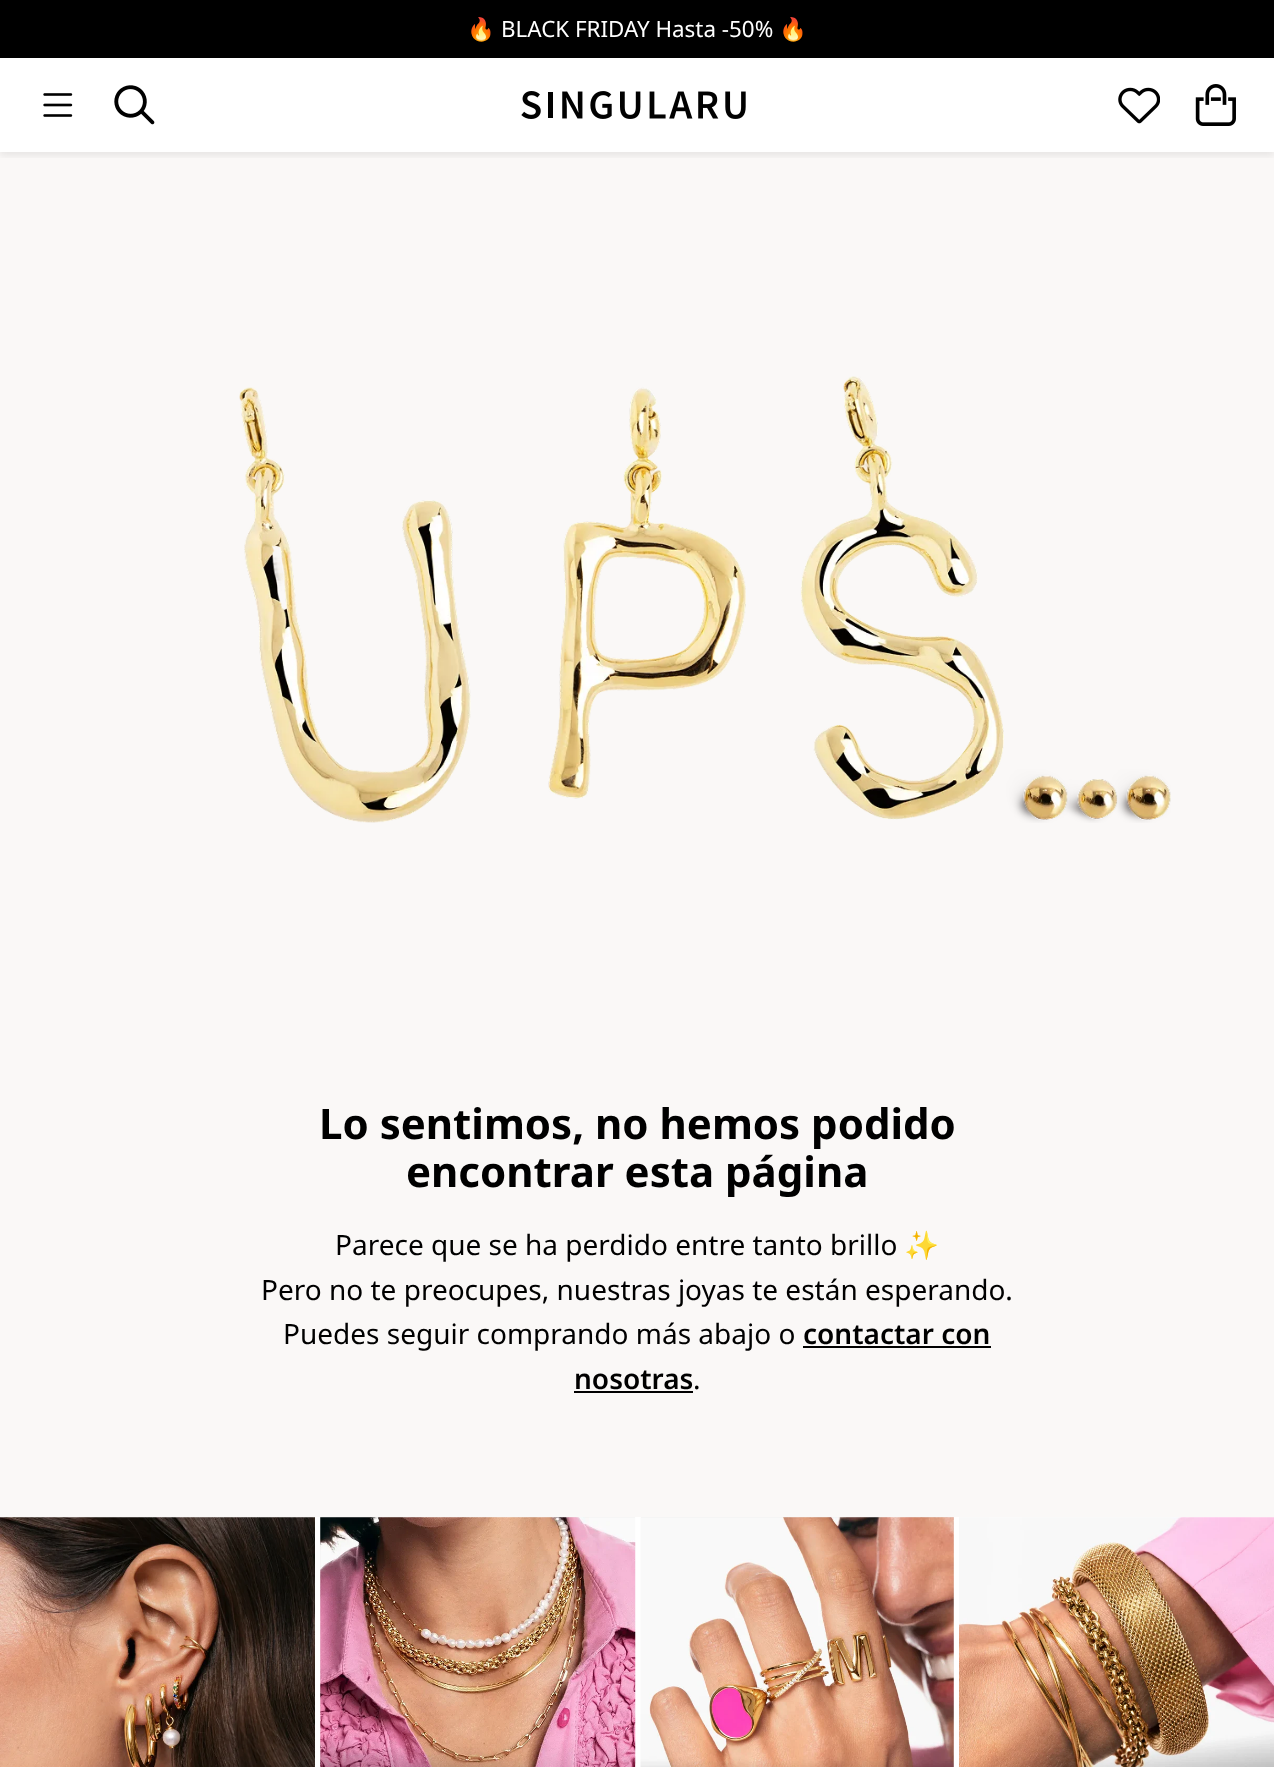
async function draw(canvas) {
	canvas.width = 1274;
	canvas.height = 1767;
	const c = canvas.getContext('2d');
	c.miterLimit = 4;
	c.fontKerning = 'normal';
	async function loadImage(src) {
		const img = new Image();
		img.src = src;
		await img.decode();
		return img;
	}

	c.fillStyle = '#fff';
	c.fillRect(0, 0, 1274, 1767);
	c.fillStyle = '#faf8f7';
	c.fillRect(0, 152, 1274, 1365);
	c.save();
	c.beginPath();
	c.rect(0, 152, 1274, 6);
	c.clip();
	c.fillStyle = '#00000012';
	c.filter = 'blur(3.5px)';
	c.beginPath();
	c.rect(0, 61, 1274, 95);
	c.fill();
	c.filter = 'none';
	c.restore();
	c.fillStyle = '#000';
	c.fillRect(0, 0, 1274, 58);
	c.font = '22.4px Noto Color Emoji';
	c.fillStyle = '#fff';
	c.fillText('🔥', 467, 37);
	c.font = '22.4px Noto Sans';
	c.fillText('BLACK FRIDAY Hasta -50%', 501, 37);
	c.font = '22.4px Noto Color Emoji';
	c.fillText('🔥', 779, 37);
	c.drawImage(await loadImage('img1.png'), 43, 93, 30, 24);
	c.drawImage(await loadImage('img2.png'), 114, 85, 41, 40);
	c.drawImage(await loadImage('img3.png'), 521, 91, 225, 28);
	c.drawImage(await loadImage('img4.png'), 1118, 87, 42, 37);
	c.drawImage(await loadImage('img5.png'), 1195, 84, 41, 42);
	c.drawImage(await loadImage('img6.png'), 239, 376, 932, 447);
	c.font = 'bold 42px Noto Sans';
	c.fillStyle = '#000';
	c.fillText('Lo sentimos, no hemos podido', 319, 1139);
	c.fillText('encontrar esta página', 406, 1187);
	c.font = '28px Noto Sans';
	c.fillText('Parece que se ha perdido entre tanto brillo', 335, 1255);
	c.font = '28px Noto Color Emoji';
	c.fillText('✨', 904, 1255);
	c.font = '28px Noto Sans';
	c.fillText('Pero no te preocupes, nuestras joyas te están esperando.', 261, 1300);
	c.fillText('Puedes seguir comprando más abajo o', 283, 1344);
	c.font = '600 28px Noto Sans';
	c.fillText('contactar con', 803, 1344);
	c.fillRect(803, 1346, 188, 2);
	c.fillText('nosotras', 574, 1389);
	c.fillRect(574, 1391, 119, 2);
	c.font = '28px Noto Sans';
	c.fillText('.', 693, 1389);
	c.drawImage(await loadImage('img7.png'), 0, 1517, 315, 250);
	c.fillStyle = '#e9e8e8';
	c.fillRect(320, 1517, 315, 250);
	c.drawImage(await loadImage('img8.png'), 320, 1517, 316, 250);
	c.fillRect(641, 1517, 313, 250);
	c.drawImage(await loadImage('img9.png'), 640, 1517, 314, 250);
	c.drawImage(await loadImage('img10.png'), 959, 1517, 315, 250);
}

draw(document.querySelector('canvas'));
